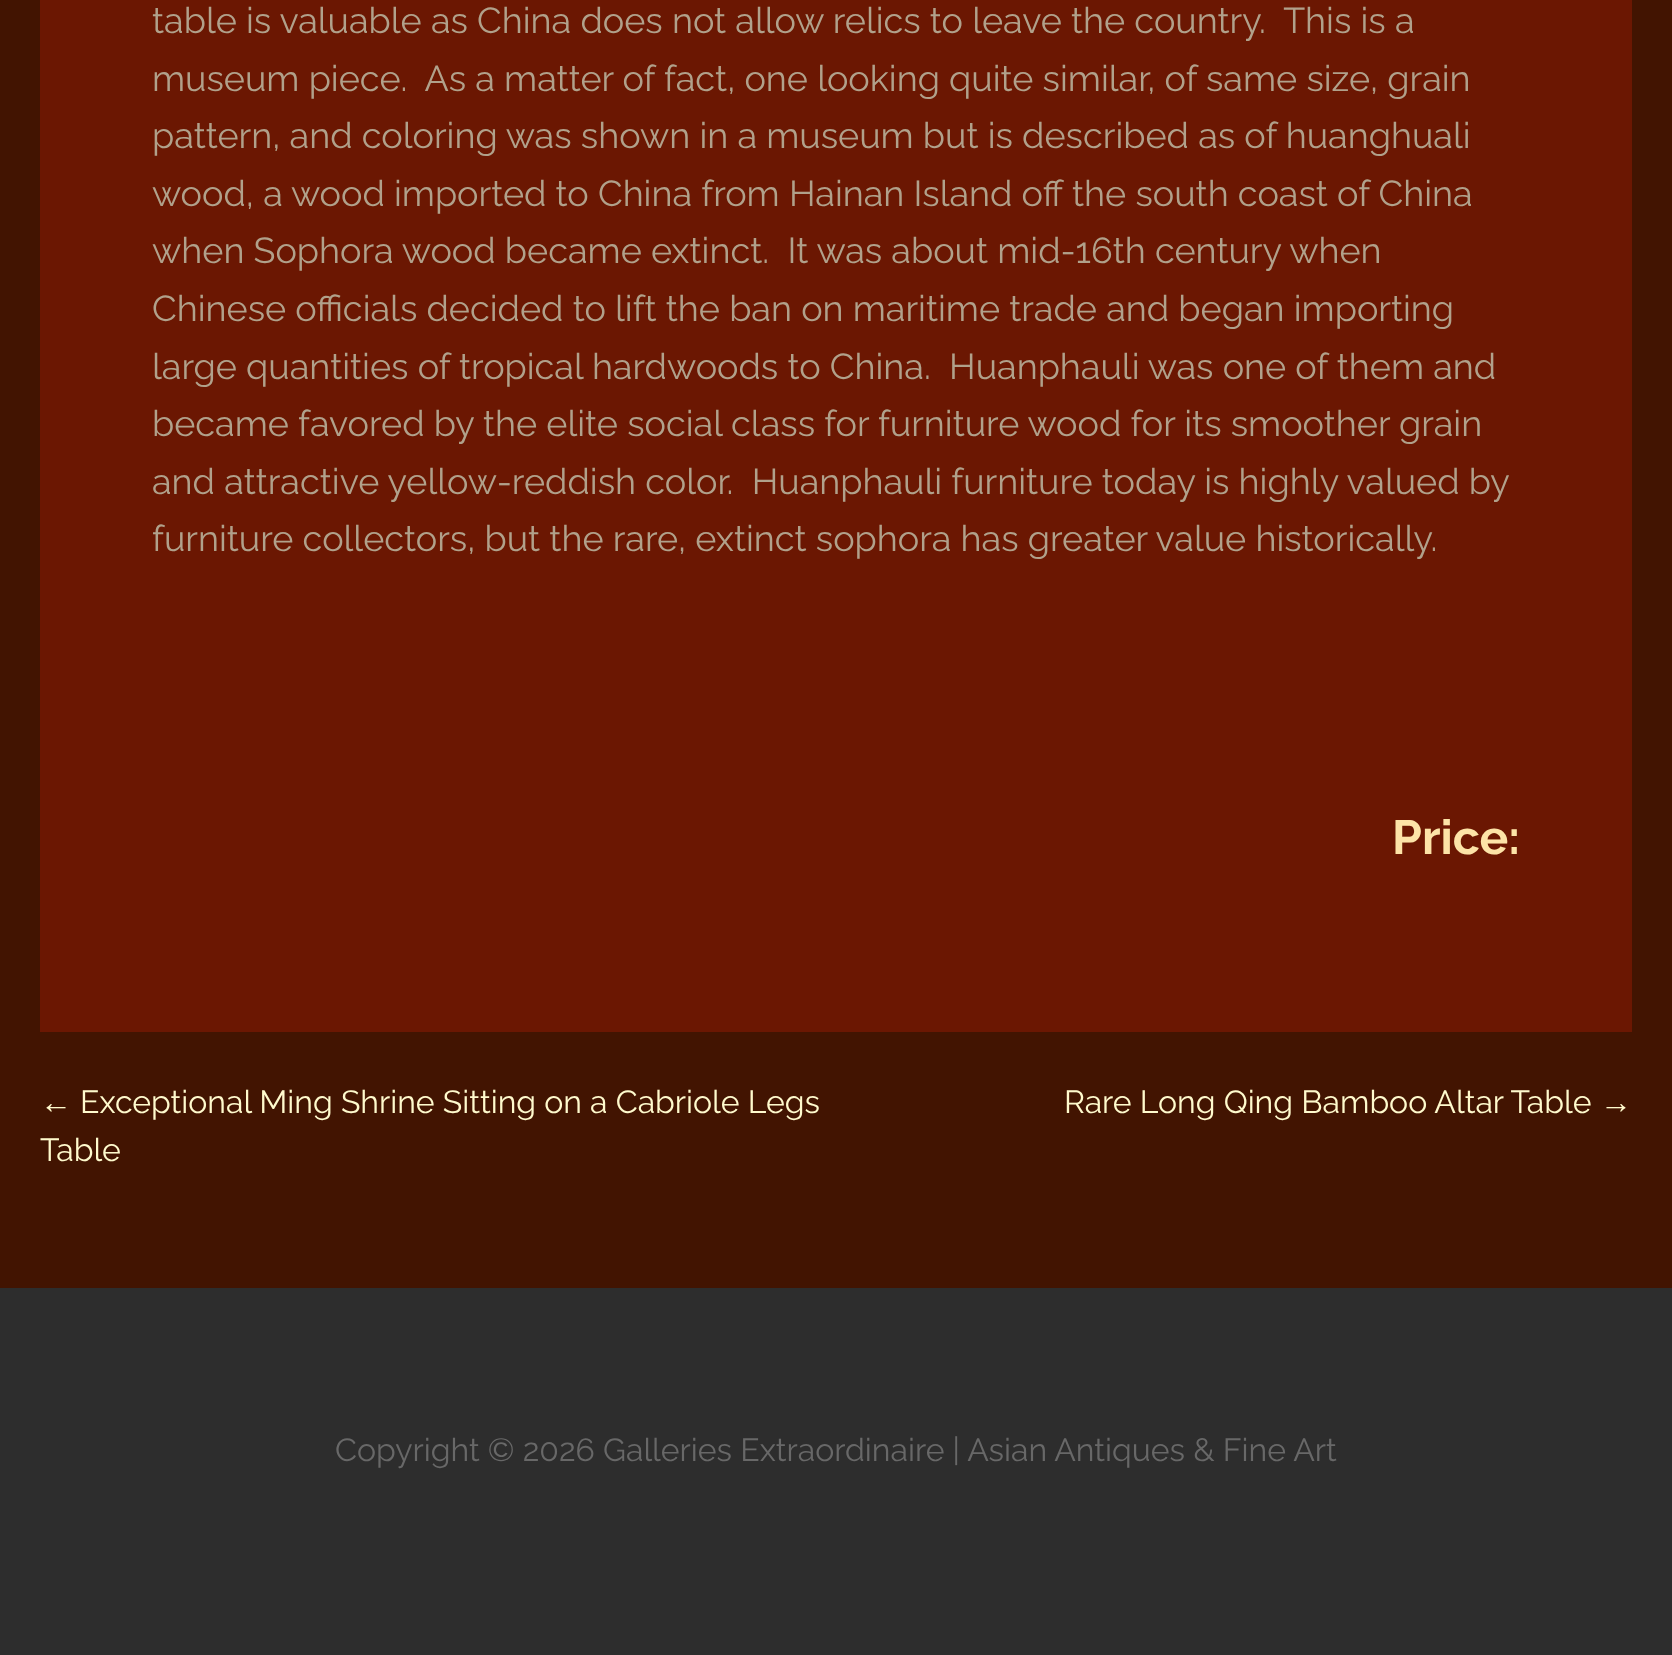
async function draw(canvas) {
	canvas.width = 1672;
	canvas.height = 1655;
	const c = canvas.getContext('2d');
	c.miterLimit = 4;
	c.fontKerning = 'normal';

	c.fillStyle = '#421401';
	c.fillRect(0, 0, 1672, 1655);
	c.fillStyle = '#6b1702';
	c.fillRect(40, 0, 1592, 1032);
	c.font = '36px Raleway';
	c.fillStyle = '#b1a18b';
	for (const [text, x, y] of [
		['table is valuable as China does not allow relics to leave the country.  This is a', 152, 33],
		['museum piece.  As a matter of fact, one looking quite similar, of same size, grain', 152, 91],
		['pattern, and coloring was shown in a museum but is described as of huanghuali', 152, 148],
		['wood, a wood imported to China from Hainan Island off the south coast of China', 152, 206],
		['when Sophora wood became extinct.  It was about mid-16th century when', 152, 263],
		['Chinese officials decided to lift the ban on maritime trade and began importing', 152, 321],
		['large quantities of tropical hardwoods to China.  Huanphauli was one of them and', 152, 379],
		['became favored by the elite social class for furniture wood for its smoother grain', 152, 436],
		['and attractive yellow-reddish color.  Huanphauli furniture today is highly valued by', 152, 494],
		['furniture collectors, but the rare, extinct sophora has greater value historically.', 152, 551],
	]) {
		c.fillText(text, x, y);
	}
	c.font = 'bold 48px Raleway';
	c.fillStyle = '#fde3a7';
	c.fillText('Price:', 1392, 854);
	c.font = '32px Liberation Sans';
	c.fillStyle = '#fffacd';
	c.fillText('←', 40, 1113);
	c.font = '32px Raleway';
	for (const [text, x, y] of [
		['Exceptional Ming Shrine Sitting on a Cabriole Legs', 80, 1113],
		['Table', 40, 1161],
		['Rare Long Qing Bamboo Altar Table', 1064, 1113],
	]) {
		c.fillText(text, x, y);
	}
	c.font = '32px Liberation Sans';
	c.fillText('→', 1600, 1113);
	c.fillStyle = '#2d2d2d';
	c.fillRect(0, 1288, 1672, 367);
	c.font = '32px Raleway';
	c.fillStyle = '#686868';
	c.fillText('Copyright © 2026 Galleries Extraordinaire | Asian Antiques & Fine Art', 335, 1461);
}

draw(document.querySelector('canvas'));
